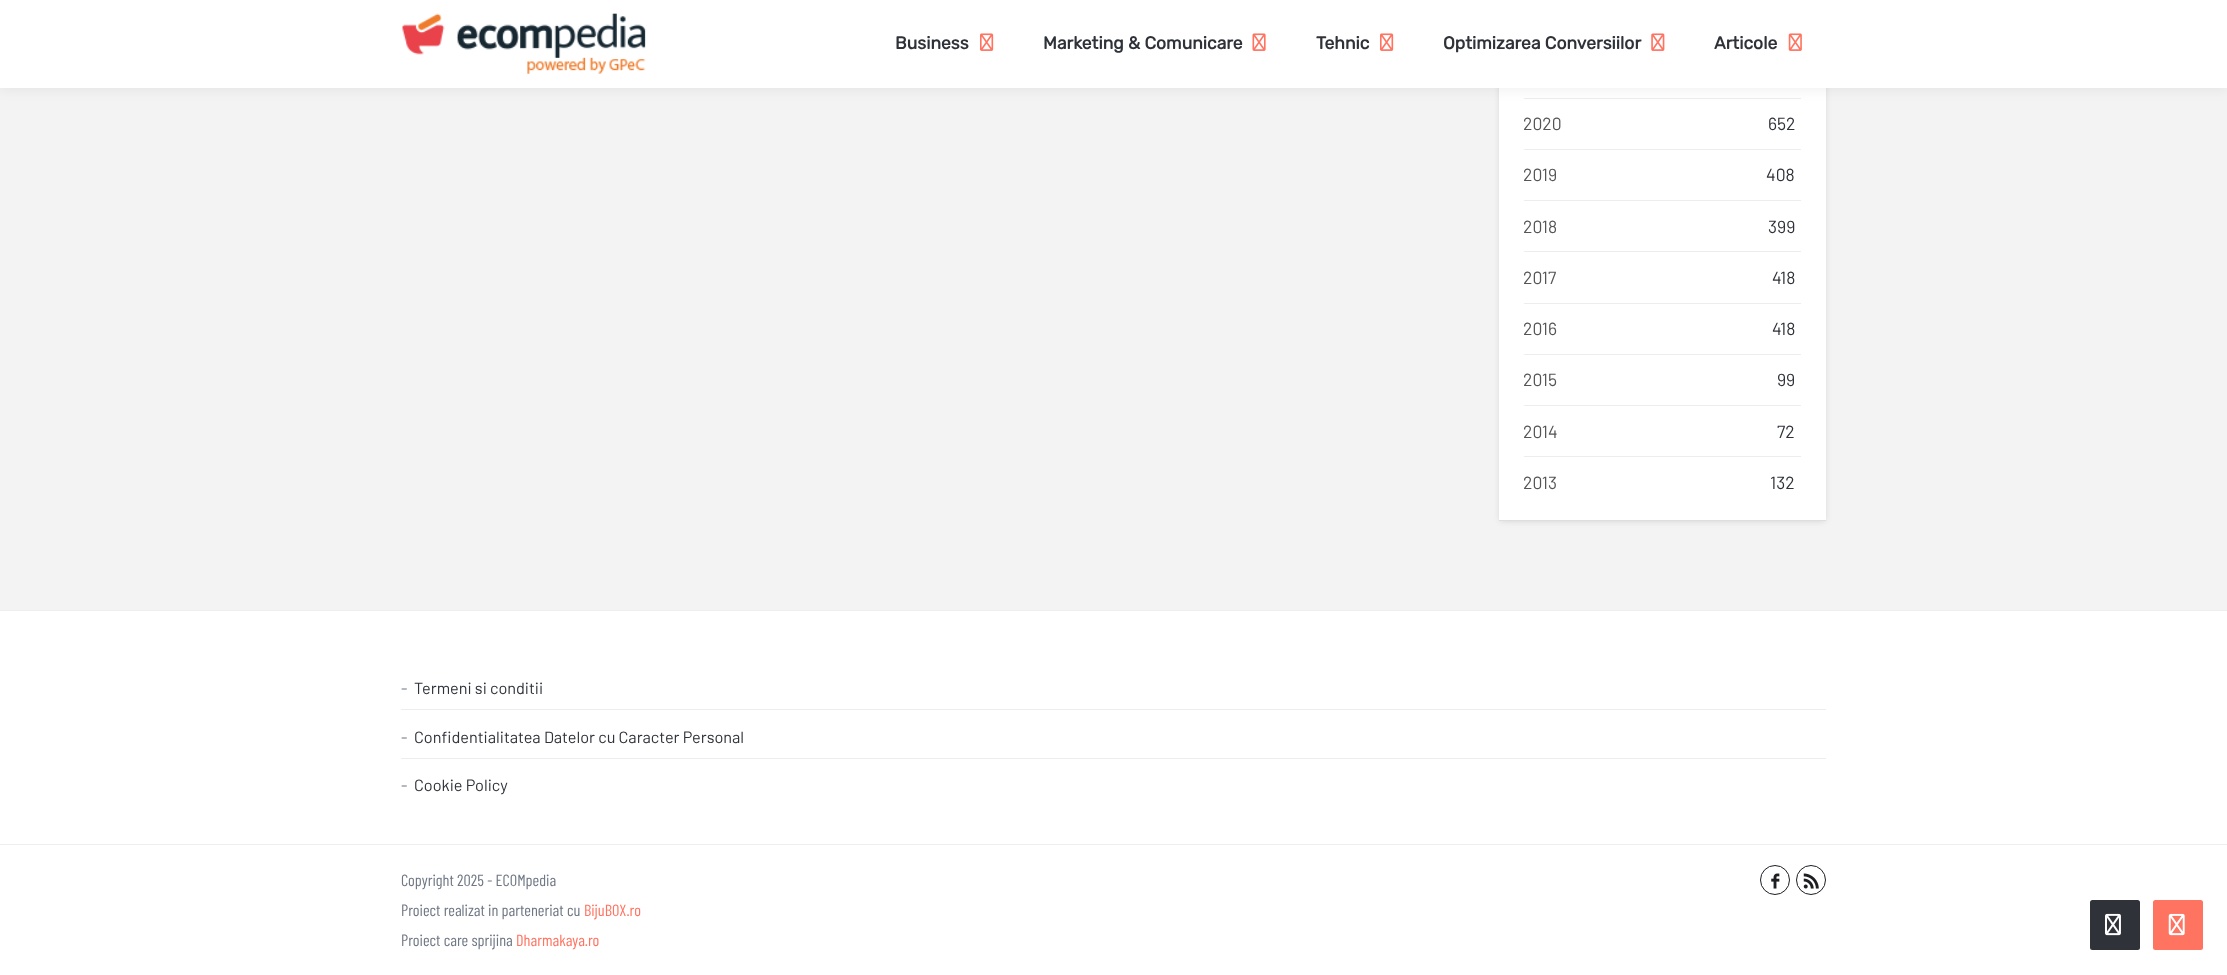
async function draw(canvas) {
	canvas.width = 2227;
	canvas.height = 975;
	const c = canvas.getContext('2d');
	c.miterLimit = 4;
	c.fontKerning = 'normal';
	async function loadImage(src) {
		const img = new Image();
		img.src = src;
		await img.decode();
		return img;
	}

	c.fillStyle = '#f3f3f3';
	c.fillRect(0, 0, 2227, 975);
	c.fillStyle = '#00000021';
	c.filter = 'blur(3px)';
	c.beginPath();
	c.rect(1500, -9, 325, 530);
	c.fill();
	c.filter = 'none';
	c.fillStyle = '#fff';
	c.fillRect(1499, 88, 327, 432);
	c.fillStyle = '#ecedee';
	c.fillRect(1524, 98, 277, 1);
	c.fillStyle = '#0000000d';
	c.filter = 'blur(6px)';
	c.beginPath();
	c.rect(0, 4, 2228, 87);
	c.fill();
	c.filter = 'none';
	c.fillStyle = '#fff';
	c.fillRect(0, 0, 2227, 88);
	c.drawImage(await loadImage('img1.png'), 402, 13, 244, 61);
	c.font = 'bold 17.5px Rubik';
	c.fillStyle = '#2f3239';
	c.fillText('Business', 895, 49);
	c.drawImage(await loadImage('img2.png'), 980, 33, 14, 18);
	c.fillText('Marketing & Comunicare', 1043, 49);
	c.drawImage(await loadImage('img3.png'), 1252, 33, 14, 18);
	c.fillText('Tehnic', 1316, 49);
	c.drawImage(await loadImage('img2.png'), 1380, 33, 14, 18);
	c.fillText('Optimizarea Conversiilor', 1443, 49);
	c.drawImage(await loadImage('img4.png'), 1651, 33, 14, 18);
	c.fillText('Articole', 1714, 49);
	c.drawImage(await loadImage('img5.png'), 1788, 33, 14, 18);
	c.fillStyle = '#dedede';
	c.fillRect(1499, 520, 327, 1);
	c.fillStyle = '#ecedee';
	c.fillRect(1524, 149, 277, 1);
	c.font = '17.5px Barlow';
	c.fillStyle = '#555';
	c.fillText('2020', 1523, 130);
	c.fillStyle = '#2f3239';
	c.fillText('652', 1768, 130);
	c.fillStyle = '#ecedee';
	c.fillRect(1524, 200, 277, 1);
	c.fillStyle = '#555';
	c.fillText('2019', 1523, 181);
	c.fillStyle = '#2f3239';
	c.fillText('408', 1766, 181);
	c.fillStyle = '#ecedee';
	c.fillRect(1524, 251, 277, 1);
	c.fillStyle = '#555';
	c.fillText('2018', 1523, 233);
	c.fillStyle = '#2f3239';
	c.fillText('399', 1768, 233);
	c.fillStyle = '#ecedee';
	c.fillRect(1524, 303, 277, 1);
	c.fillStyle = '#555';
	c.fillText('2017', 1523, 284);
	c.fillStyle = '#2f3239';
	c.fillText('418', 1772, 284);
	c.fillStyle = '#ecedee';
	c.fillRect(1524, 354, 277, 1);
	c.fillStyle = '#555';
	c.fillText('2016', 1523, 335);
	c.fillStyle = '#2f3239';
	c.fillText('418', 1772, 335);
	c.fillStyle = '#ecedee';
	c.fillRect(1524, 405, 277, 1);
	c.fillStyle = '#555';
	c.fillText('2015', 1523, 386);
	c.fillStyle = '#2f3239';
	c.fillText('99', 1777, 386);
	c.fillStyle = '#ecedee';
	c.fillRect(1524, 456, 277, 1);
	c.fillStyle = '#555';
	c.fillText('2014', 1523, 438);
	c.fillStyle = '#2f3239';
	c.fillText('72', 1777, 438);
	c.fillStyle = '#555';
	c.fillText('2013', 1523, 489);
	c.fillStyle = '#2f3239';
	c.fillText('132', 1770, 489);
	for (const [x, y, w, h, color] of [
		[0, 611, 2227, 233, '#fff'],
		[0, 610, 2227, 1, '#eee'],
		[401, 709, 1425, 1, '#ecedee'],
	]) {
		c.fillStyle = color;
		c.fillRect(x, y, w, h);
	}
	c.font = '16.25px Barlow';
	c.fillStyle = '#707885';
	c.fillText('-', 401, 694);
	c.fillStyle = '#2f3239';
	c.fillText('Termeni si conditii', 414, 694);
	c.fillStyle = '#ecedee';
	c.fillRect(401, 758, 1425, 1);
	c.fillStyle = '#707885';
	c.fillText('-', 401, 743);
	c.fillStyle = '#2f3239';
	c.fillText('Confidentialitatea Datelor cu Caracter Personal', 414, 743);
	c.fillStyle = '#707885';
	c.fillText('-', 401, 791);
	c.fillStyle = '#2f3239';
	c.fillText('Cookie Policy', 414, 791);
	c.fillStyle = '#fff';
	c.fillRect(0, 845, 2227, 130);
	c.fillStyle = '#eee';
	c.fillRect(0, 844, 2227, 1);
	c.font = '16.25px Barlow Condensed';
	c.fillStyle = '#707885';
	c.fillText('Copyright 2025 - ECOMpedia', 401, 886);
	c.fillText('Proiect realizat in parteneriat cu', 401, 916);
	c.fillStyle = '#ff7361';
	c.fillText('BijuBOX.ro', 584, 916);
	c.fillStyle = '#707885';
	c.fillText('Proiect care sprijina', 401, 946);
	c.fillStyle = '#ff7361';
	c.fillText('Dharmakaya.ro', 516, 946);
	c.beginPath();
	c.arc(1775, 880, 14.5, 0, 2 * Math.PI);
	c.strokeStyle = '#1d1e22';
	c.stroke();
	c.drawImage(await loadImage('img6.png'), 1771, 873, 9, 16);
	c.beginPath();
	c.arc(1811, 880, 14.5, 0, 2 * Math.PI);
	c.stroke();
	c.drawImage(await loadImage('img7.png'), 1803, 873, 16, 16);
	c.fillStyle = '#2f3239';
	c.beginPath();
	c.roundRect(2090, 900, 50, 50, 2.5);
	c.fill();
	c.drawImage(await loadImage('img8.png'), 2105, 913, 16, 23);
	c.fillStyle = '#ff7361';
	c.beginPath();
	c.roundRect(2153, 900, 50, 50, 2.5);
	c.fill();
	c.drawImage(await loadImage('img9.png'), 2168, 913, 17, 23);
}

draw(document.querySelector('canvas'));
